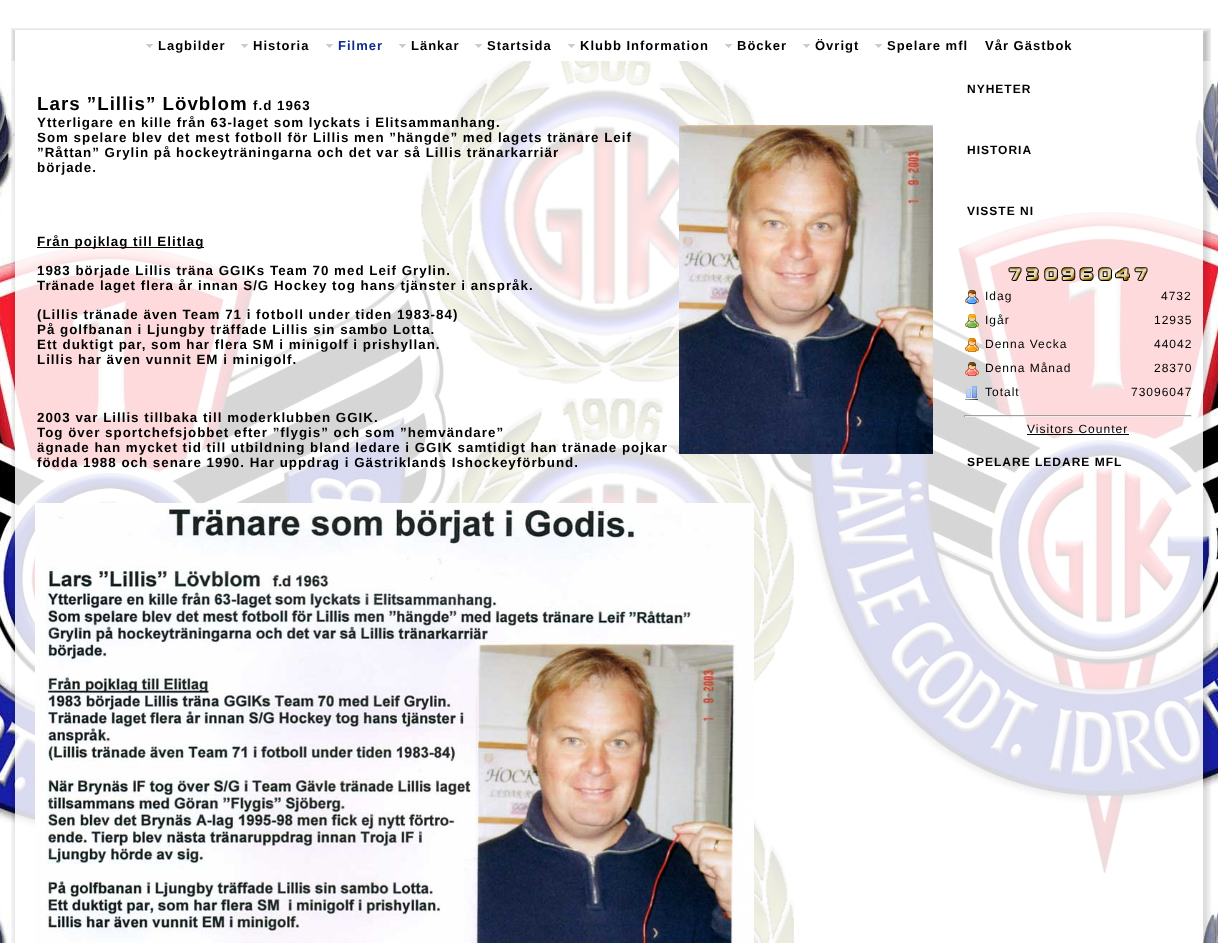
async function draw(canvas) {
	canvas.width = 1218;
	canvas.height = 943;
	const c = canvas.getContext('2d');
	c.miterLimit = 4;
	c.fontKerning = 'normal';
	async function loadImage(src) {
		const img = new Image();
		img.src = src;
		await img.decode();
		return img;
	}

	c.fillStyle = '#fff';
	c.fillRect(0, 0, 1218, 943);
	c.drawImage(await loadImage('img1.png'), 0, 32, 1218, 911);
	c.drawImage(await loadImage('img2.png'), 11, 28, 1161, 33);
	c.drawImage(await loadImage('img3.png'), 11, 28, 1161, 33);
	c.drawImage(await loadImage('img4.png'), 1172, 28, 39, 33);
	c.drawImage(await loadImage('img5.png'), 1172, 28, 39, 33);
	c.fillRect(523, 41, 164, 20);
	c.drawImage(await loadImage('img6.png'), 146, 44, 7, 4);
	c.letterSpacing = '1px';
	c.font = 'bold 13px Liberation Sans';
	c.fillStyle = '#000';
	c.fillText('Lagbilder', 158, 50);
	c.drawImage(await loadImage('img6.png'), 241, 44, 7, 4);
	c.fillText('Historia', 253, 50);
	c.drawImage(await loadImage('img6.png'), 326, 44, 7, 4);
	c.fillStyle = '#0e2c8e';
	c.fillText('Filmer', 338, 50);
	c.drawImage(await loadImage('img6.png'), 399, 44, 7, 4);
	c.fillStyle = '#000';
	c.fillText('Länkar', 411, 50);
	c.drawImage(await loadImage('img6.png'), 475, 44, 7, 4);
	c.fillText('Startsida', 487, 50);
	c.drawImage(await loadImage('img6.png'), 568, 44, 7, 4);
	c.fillText('Klubb Information', 580, 50);
	c.drawImage(await loadImage('img6.png'), 725, 44, 7, 4);
	c.fillText('Böcker', 737, 50);
	c.drawImage(await loadImage('img6.png'), 803, 44, 7, 4);
	c.fillText('Övrigt', 815, 50);
	c.drawImage(await loadImage('img6.png'), 875, 44, 7, 4);
	c.fillText('Spelare mfl', 887, 50);
	c.fillText('Vår Gästbok', 985, 50);
	c.drawImage(await loadImage('img7.png'), 11, 61, 1161, 882);
	c.drawImage(await loadImage('img8.png'), 1172, 61, 39, 882);
	c.font = 'bold 18.75px Liberation Sans';
	c.fillText('Lars ”Lillis” Lövblom', 37, 110);
	c.font = 'bold 13.35px Liberation Sans';
	for (const [text, x, y] of [
		['f.d 1963', 253, 110],
		['Ytterligare en kille från 63-laget som lyckats i Elitsammanhang.', 37, 127],
		['Som spelare blev det mest fotboll för Lillis men ”hängde” med lagets tränare Leif', 37, 142],
		['”Råttan” Grylin på hockeyträningarna och det var så Lillis tränarkarriär', 37, 157],
		['började.', 37, 172],
	]) {
		c.fillText(text, x, y);
	}
	c.fillRect(37, 247, 167, 1);
	for (const [text, x, y] of [
		['Från pojklag till Elitlag', 37, 246],
		['1983 började Lillis träna GGIKs Team 70 med Leif Grylin.', 37, 275],
		['Tränade laget flera år innan S/G Hockey tog hans tjänster i anspråk.', 37, 290],
		['(Lillis tränade även Team 71 i fotboll under tiden 1983-84)', 37, 319],
		['På golfbanan i Ljungby träffade Lillis sin sambo Lotta.', 37, 334],
		['Ett duktigt par, som har flera SM i minigolf i prishyllan.', 37, 349],
		['Lillis har även vunnit EM i minigolf.', 37, 364],
		['2003 var Lillis tillbaka till moderklubben GGIK.', 37, 422],
		['Tog över sportchefsjobbet efter ”flygis” och som ”hemvändare”', 37, 437],
		['ägnade han mycket tid till utbildning bland ledare i GGIK samtidigt han tränade pojkar', 37, 452],
		['födda 1988 och senare 1990. Har uppdrag i Gästriklands Ishockeyförbund.', 37, 467],
	]) {
		c.fillText(text, x, y);
	}
	c.drawImage(await loadImage('img9.png'), 679, 125, 254, 329);
	c.drawImage(await loadImage('img10.png'), 35, 503, 719, 440);
	c.font = 'bold 12px Liberation Sans';
	for (const [text, x, y] of [
		['NYHETER', 967, 93],
		['HISTORIA', 967, 154],
		['VISSTE NI', 967, 215],
	]) {
		c.fillText(text, x, y);
	}
	c.drawImage(await loadImage('img11.png'), 1008, 267, 14, 14);
	c.drawImage(await loadImage('img12.png'), 1026, 267, 13, 14);
	c.drawImage(await loadImage('img13.png'), 1044, 267, 14, 14);
	c.drawImage(await loadImage('img14.png'), 1061, 267, 15, 14);
	c.drawImage(await loadImage('img15.png'), 1079, 267, 15, 14);
	c.drawImage(await loadImage('img16.png'), 1098, 267, 14, 14);
	c.drawImage(await loadImage('img17.png'), 1115, 267, 15, 14);
	c.drawImage(await loadImage('img18.png'), 1134, 267, 14, 14);
	c.drawImage(await loadImage('img19.png'), 965, 290, 14, 14);
	c.drawImage(await loadImage('img20.png'), 965, 314, 14, 14);
	c.drawImage(await loadImage('img21.png'), 965, 338, 14, 14);
	c.drawImage(await loadImage('img22.png'), 965, 362, 14, 14);
	c.drawImage(await loadImage('img23.png'), 965, 386, 13, 14);
	c.font = '12px Liberation Sans';
	for (const [text, x, y] of [
		['Idag', 985, 300],
		['Igår', 985, 324],
		['Denna Vecka', 985, 348],
		['Denna Månad', 985, 372],
		['Totalt', 985, 396],
		['4732', 1161, 300],
		['12935', 1154, 324],
		['44042', 1154, 348],
		['28370', 1154, 372],
		['73096047', 1131, 396],
	]) {
		c.fillText(text, x, y);
	}
	for (const [x, y, w, h, color] of [
		[964, 415, 228, 1, '#9f9f9f'],
		[1191, 415, 1, 2, '#eee'],
		[964, 416, 228, 1, '#eee'],
		[964, 415, 1, 2, '#9f9f9f'],
	]) {
		c.fillStyle = color;
		c.fillRect(x, y, w, h);
	}
	c.fillStyle = '#000';
	c.fillText('Visitors Counter', 1027, 433);
	c.fillRect(1027, 434, 102, 1);
	c.font = 'bold 12px Liberation Sans';
	c.fillText('SPELARE LEDARE MFL', 967, 466);
}

draw(document.querySelector('canvas'));
